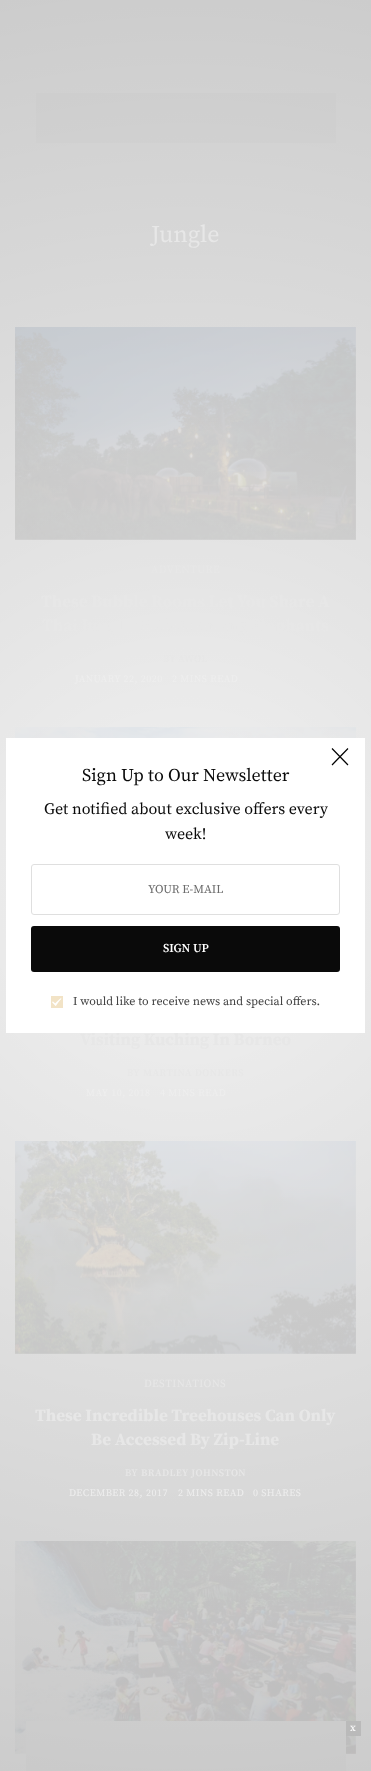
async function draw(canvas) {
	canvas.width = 371;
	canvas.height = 1771;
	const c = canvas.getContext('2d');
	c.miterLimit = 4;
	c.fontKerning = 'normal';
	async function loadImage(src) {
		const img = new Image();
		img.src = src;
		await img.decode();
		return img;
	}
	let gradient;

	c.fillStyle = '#fff';
	c.fillRect(0, 0, 371, 1771);
	c.fillStyle = '#fcfcfc';
	c.fillRect(36, 93, 300, 50);
	c.drawImage(await loadImage('img1.png'), 15, 327, 341, 213);
	c.drawImage(await loadImage('img2.png'), 15, 727, 341, 11);
	c.drawImage(await loadImage('img3.png'), 15, 1141, 341, 213);
	c.drawImage(await loadImage('img4.png'), 15, 1541, 341, 213);
	c.fillRect(26, 1721, 320, 50);
	c.fillStyle = '#e6e6e6';
	c.fillRect(346, 1721, 15, 15);
	gradient = c.createRadialGradient(186, 886, 0, 186, 886, 905);
	gradient.addColorStop(0, '#0000000d');
	gradient.addColorStop(1, '#00000033');
	c.fillStyle = gradient;
	c.fillRect(0, 0, 371, 1771);
	c.font = '24px Source Serif Pro';
	c.fillStyle = '#e7e7e7';
	c.fillText('Jungle', 151, 242);
	c.letterSpacing = '0.5px';
	c.font = '11px Source Serif Pro';
	c.fillText('ADVENTURE', 151, 573);
	c.letterSpacing = '0px';
	c.font = 'bold 17px Source Serif Pro';
	c.fillText('These Bubble Rooms Let You Share A', 41, 607);
	c.fillText('Thai Jungle With Roaming Elephants', 42, 631);
	c.letterSpacing = '0.5px';
	c.font = '10px Source Serif Pro';
	c.fillText('BY', 163, 662);
	c.font = '600 10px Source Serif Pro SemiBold';
	c.fillText('AWOL', 178, 662);
	c.font = '10px Source Serif Pro';
	c.fillStyle = '#eee';
	c.fillText('JANUARY 22, 2020', 75, 682);
	c.fillText('2 MINS READ', 172, 682);
	c.letterSpacing = '0px';
	c.font = 'bold 17px Source Serif Pro';
	c.fillStyle = '#e7e7e7';
	c.fillText('Visiting Kuching In Borneo', 80, 1045);
	c.letterSpacing = '0.5px';
	c.font = '10px Source Serif Pro';
	c.fillText('BY', 127, 1076);
	c.font = '600 10px Source Serif Pro SemiBold';
	c.fillText('MARTINA DONKERS', 143, 1076);
	c.font = '10px Source Serif Pro';
	c.fillStyle = '#eee';
	c.fillText('MAY 10, 2018', 86, 1096);
	c.fillText('4 MINS READ', 160, 1096);
	c.font = '11px Source Serif Pro';
	c.fillStyle = '#e7e7e7';
	c.fillText('DESTINATIONS', 144, 1387);
	c.letterSpacing = '0px';
	c.font = 'bold 17px Source Serif Pro';
	c.fillText('These Incredible Treehouses Can Only', 35, 1421);
	c.fillText('Be Accessed By Zip-Line', 91, 1445);
	c.letterSpacing = '0.5px';
	c.font = '10px Source Serif Pro';
	c.fillText('BY', 125, 1476);
	c.font = '600 10px Source Serif Pro SemiBold';
	c.fillText('BRADLEY JOHNSTON', 141, 1476);
	c.font = '10px Source Serif Pro';
	c.fillStyle = '#eee';
	for (const [text, x, y] of [
		['DECEMBER 28, 2017', 69, 1496],
		['2 MINS READ', 178, 1496],
		['0 SHARES', 253, 1496],
	]) {
		c.fillText(text, x, y);
	}
	c.fillStyle = '#fff';
	c.fillRect(6, 738, 359, 295);
	c.beginPath();
	c.moveTo(332, 748.5);
	c.lineTo(348, 765);
	c.moveTo(332, 765);
	c.lineTo(348, 748.5);
	c.strokeStyle = '#000';
	c.lineWidth = 1.2;
	c.stroke();
	c.letterSpacing = '0px';
	c.font = '18px Source Serif Pro';
	c.fillStyle = '#0a0a0a';
	c.fillText('Sign Up to Our Newsletter', 82, 781);
	c.font = '16px Source Serif Pro';
	c.fillText('Get notified about exclusive offers every', 44, 814);
	c.fillText('week!', 165, 839);
	c.beginPath();
	c.roundRect(31.5, 864.5, 308, 50, 2.5);
	c.strokeStyle = '#dfdfdf';
	c.lineWidth = 1;
	c.stroke();
	c.font = '12px Source Serif Pro';
	c.fillStyle = '#6c6c6c';
	c.fillText('YOUR E-MAIL', 148, 893);
	c.fillStyle = '#0a0a0a';
	c.beginPath();
	c.roundRect(31, 926, 309, 46, 3);
	c.fill();
	c.font = '600 12px Source Serif Pro SemiBold';
	c.fillStyle = '#fff';
	c.fillText('SIGN UP', 163, 952);
	c.fillStyle = '#f2e3c6';
	c.fillRect(51, 996, 12, 12);
	c.drawImage(await loadImage('img5.png'), 52, 998, 10, 8);
	c.font = '12px Source Serif Pro';
	c.fillStyle = '#404040';
	c.fillText('I would like to receive news and special offers.', 73, 1005);
	c.font = '11px Source Serif Pro';
	c.fillStyle = '#fff';
	c.fillText('x', 350, 1731);
}

draw(document.querySelector('canvas'));
